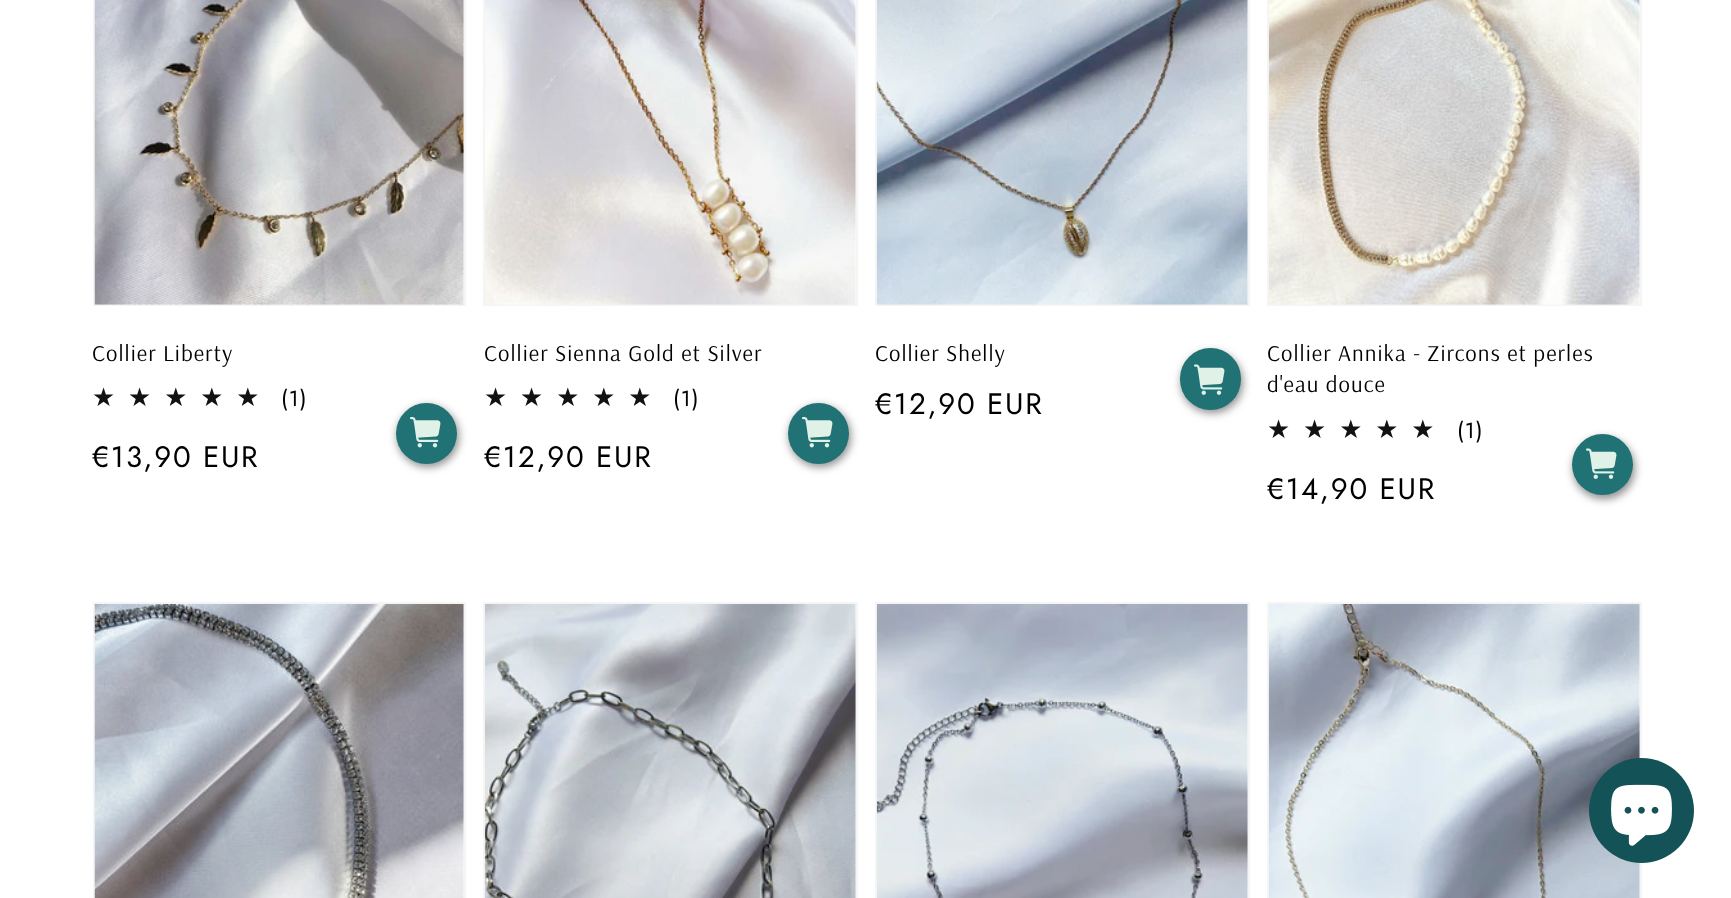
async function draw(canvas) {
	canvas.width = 1731;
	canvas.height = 898;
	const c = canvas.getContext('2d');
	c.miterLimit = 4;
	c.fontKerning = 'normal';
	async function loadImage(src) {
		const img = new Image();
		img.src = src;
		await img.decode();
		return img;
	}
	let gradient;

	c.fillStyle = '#fff';
	c.fillRect(0, 0, 1731, 898);
	c.strokeStyle = '#f5f5f5';
	c.lineWidth = 2;
	c.strokeRect(94, -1, 371, 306);
	c.drawImage(await loadImage('img1.png'), 94, 0, 370, 305);
	c.letterSpacing = '1.05px';
	c.font = '22.75px Arsenal';
	c.fillStyle = '#000';
	c.fillText('Collier Liberty', 92, 361);
	c.fillStyle = '#8d8d8d';
	c.filter = 'blur(4.5px)';
	c.beginPath();
	c.roundRect(397, 406, 62, 61, 30.5);
	c.fill();
	c.filter = 'none';
	c.fillStyle = '#217275';
	c.beginPath();
	c.arc(426.5, 433.5, 30.5, 0, 2 * Math.PI);
	c.fill();
	c.drawImage(await loadImage('img2.png'), 410, 417, 31, 31);
	c.letterSpacing = '13px';
	c.font = '25.75px DejaVu Sans';
	gradient = c.createLinearGradient(92, 398, 271, 398);
	gradient.addColorStop(1, '#121212');
	gradient.addColorStop(1, '#d9d9d9');
	c.fillStyle = gradient;
	c.fillText('★★★★★', 92, 406);
	c.letterSpacing = '1px';
	c.font = '22px Jost';
	c.fillStyle = '#000';
	c.fillText('(1)', 281, 406);
	c.letterSpacing = '1.75px';
	c.font = '29.5px Jost';
	c.fillText('€13,90 EUR', 92, 467);
	c.strokeRect(484, -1, 373, 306);
	c.drawImage(await loadImage('img3.png'), 485, 0, 371, 305);
	c.letterSpacing = '1.05px';
	c.font = '22.75px Arsenal';
	c.fillText('Collier Sienna Gold et Silver', 484, 361);
	c.fillStyle = '#8d8d8d';
	c.filter = 'blur(4.5px)';
	c.beginPath();
	c.roundRect(789, 406, 62, 61, 30.5);
	c.fill();
	c.filter = 'none';
	c.fillStyle = '#217275';
	c.beginPath();
	c.arc(818.5, 433.5, 30.5, 0, 2 * Math.PI);
	c.fill();
	c.drawImage(await loadImage('img2.png'), 802, 417, 31, 31);
	c.letterSpacing = '13px';
	c.font = '25.75px DejaVu Sans';
	gradient = c.createLinearGradient(484, 398, 663, 398);
	gradient.addColorStop(1, '#121212');
	gradient.addColorStop(1, '#d9d9d9');
	c.fillStyle = gradient;
	c.fillText('★★★★★', 484, 406);
	c.letterSpacing = '1px';
	c.font = '22px Jost';
	c.fillStyle = '#000';
	c.fillText('(1)', 673, 406);
	c.letterSpacing = '1.75px';
	c.font = '29.5px Jost';
	c.fillText('€12,90 EUR', 484, 467);
	c.strokeRect(876, -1, 373, 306);
	c.drawImage(await loadImage('img4.png'), 876, 0, 372, 305);
	c.letterSpacing = '1.05px';
	c.font = '22.75px Arsenal';
	c.fillText('Collier Shelly', 875, 361);
	c.fillStyle = '#8d8d8d';
	c.filter = 'blur(4.5px)';
	c.beginPath();
	c.roundRect(1181, 352, 62, 61, 30.5);
	c.fill();
	c.filter = 'none';
	c.fillStyle = '#217275';
	c.beginPath();
	c.roundRect(1180, 348, 61, 62, 30.5);
	c.fill();
	c.drawImage(await loadImage('img5.png'), 1194, 364, 31, 31);
	c.letterSpacing = '1.75px';
	c.font = '29.5px Jost';
	c.fillStyle = '#000';
	c.fillText('€12,90 EUR', 875, 414);
	c.strokeRect(1268, -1, 373, 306);
	c.drawImage(await loadImage('img6.png'), 1268, 0, 372, 305);
	c.letterSpacing = '1.05px';
	c.font = '22.75px Arsenal';
	c.fillText('Collier Annika - Zircons et perles', 1267, 361);
	c.fillText('d\'eau douce', 1267, 392);
	c.fillStyle = '#8d8d8d';
	c.filter = 'blur(4.5px)';
	c.beginPath();
	c.roundRect(1573, 438, 62, 61, 30.5);
	c.fill();
	c.filter = 'none';
	c.fillStyle = '#217275';
	c.beginPath();
	c.arc(1602.5, 464.5, 30.5, 0, 2 * Math.PI);
	c.fill();
	c.drawImage(await loadImage('img5.png'), 1586, 448, 31, 31);
	c.letterSpacing = '13px';
	c.font = '25.75px DejaVu Sans';
	gradient = c.createLinearGradient(1267, 429, 1447, 429);
	gradient.addColorStop(1, '#121212');
	gradient.addColorStop(1, '#d9d9d9');
	c.fillStyle = gradient;
	c.fillText('★★★★★', 1267, 438);
	c.letterSpacing = '1px';
	c.font = '22px Jost';
	c.fillStyle = '#000';
	c.fillText('(1)', 1457, 438);
	c.letterSpacing = '1.75px';
	c.font = '29.5px Jost';
	c.fillText('€14,90 EUR', 1267, 499);
	c.strokeRect(94, 603, 371, 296);
	c.drawImage(await loadImage('img7.png'), 94, 604, 370, 294);
	c.strokeRect(484, 603, 373, 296);
	c.drawImage(await loadImage('img8.png'), 484, 604, 372, 294);
	c.strokeRect(876, 603, 373, 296);
	c.drawImage(await loadImage('img9.png'), 876, 604, 372, 294);
	c.strokeRect(1268, 603, 373, 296);
	c.drawImage(await loadImage('img10.png'), 1268, 604, 372, 294);
	c.fillStyle = '#135256';
	c.beginPath();
	c.arc(1641.5, 810.5, 52.5, 0, 2 * Math.PI);
	c.fill();
	c.drawImage(await loadImage('img11.png'), 1611, 784, 61, 62);
}

draw(document.querySelector('canvas'));
